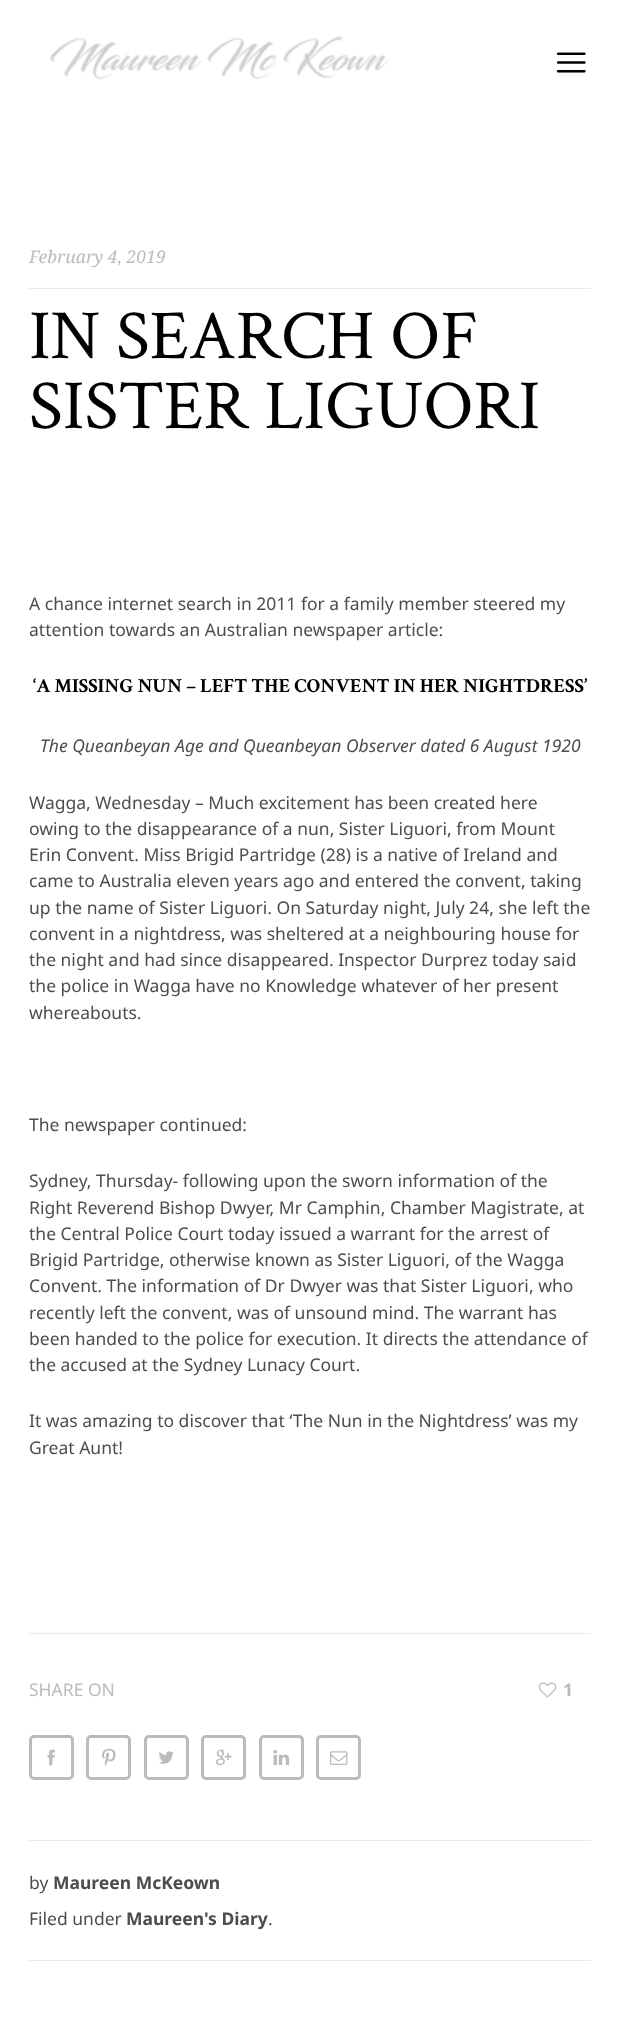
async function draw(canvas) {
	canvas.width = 619;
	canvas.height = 2023;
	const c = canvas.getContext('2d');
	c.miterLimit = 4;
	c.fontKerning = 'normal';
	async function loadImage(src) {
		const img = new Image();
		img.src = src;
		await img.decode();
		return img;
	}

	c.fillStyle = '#fff';
	c.fillRect(0, 0, 619, 2023);
	c.drawImage(await loadImage('img1.png'), 49, 36, 340, 44);
	c.drawImage(await loadImage('img2.png'), 556, 52, 30, 21);
	c.fillStyle = '#eaeaea';
	c.fillRect(29, 288, 562, 1);
	c.font = 'italic 17.5px Noto Serif';
	c.fillStyle = '#bbb';
	c.fillText('February 4, 2019', 29, 263);
	c.font = '70.25px Crimson Text';
	c.fillStyle = '#000';
	c.fillText('IN SEARCH OF', 29, 358);
	c.fillText('SISTER LIGUORI', 29, 428);
	c.font = '17.5px Noto Sans';
	c.fillStyle = '#4d4d4d';
	c.fillText('A chance internet search in 2011 for a family member steered my', 29, 610);
	c.fillText('attention towards an Australian newspaper article:', 29, 636);
	c.font = 'bold 20px Crimson Text';
	c.fillStyle = '#000';
	c.fillText('‘A MISSING NUN – LEFT THE CONVENT IN HER NIGHTDRESS’', 33, 692);
	c.font = 'italic 17.5px Noto Sans';
	c.fillStyle = '#4d4d4d';
	c.fillText('The Queanbeyan Age and Queanbeyan Observer dated 6 August 1920', 40, 752);
	c.font = '17.5px Noto Sans';
	for (const [text, x, y] of [
		['Wagga, Wednesday – Much excitement has been created here', 29, 809],
		['owing to the disappearance of a nun, Sister Liguori, from Mount', 29, 835],
		['Erin Convent. Miss Brigid Partridge (28) is a native of Ireland and', 29, 861],
		['came to Australia eleven years ago and entered the convent, taking', 29, 887],
		['up the name of Sister Liguori. On Saturday night, July 24, she left the', 29, 914],
		['convent in a nightdress, was sheltered at a neighbouring house for', 29, 940],
		['the night and had since disappeared. Inspector Durprez today said', 29, 966],
		['the police in Wagga have no Knowledge whatever of her present', 29, 992],
		['whereabouts.', 29, 1019],
		['The newspaper continued:', 29, 1131],
		['Sydney, Thursday- following upon the sworn information of the', 29, 1187],
		['Right Reverend Bishop Dwyer, Mr Camphin, Chamber Magistrate, at', 29, 1214],
		['the Central Police Court today issued a warrant for the arrest of', 29, 1240],
		['Brigid Partridge, otherwise known as Sister Liguori, of the Wagga', 29, 1266],
		['Convent. The information of Dr Dwyer was that Sister Liguori, who', 29, 1292],
		['recently left the convent, was of unsound mind. The warrant has', 29, 1319],
		['been handed to the police for execution. It directs the attendance of', 29, 1345],
		['the accused at the Sydney Lunacy Court.', 29, 1371],
		['It was amazing to discover that ‘The Nun in the Nightdress’ was my', 29, 1427],
		['Great Aunt!', 29, 1454],
	]) {
		c.fillText(text, x, y);
	}
	c.fillStyle = '#eaeaea';
	c.fillRect(29, 1633, 562, 1);
	c.fillStyle = '#bbb';
	c.fillText('SHARE ON', 29, 1696);
	c.beginPath();
	c.roundRect(30.5, 1736.5, 42, 42, 3.5);
	c.strokeStyle = '#bbb';
	c.lineWidth = 3;
	c.stroke();
	c.drawImage(await loadImage('img3.png'), 47, 1749, 8, 17);
	c.beginPath();
	c.roundRect(87.5, 1736.5, 42, 42, 3.5);
	c.stroke();
	c.drawImage(await loadImage('img4.png'), 102, 1748, 14, 18);
	c.beginPath();
	c.roundRect(145.5, 1736.5, 42, 42, 3.5);
	c.stroke();
	c.drawImage(await loadImage('img5.png'), 159, 1751, 15, 13);
	c.beginPath();
	c.roundRect(202.5, 1736.5, 42, 42, 3.5);
	c.stroke();
	c.drawImage(await loadImage('img6.png'), 216, 1749, 16, 17);
	c.beginPath();
	c.roundRect(260.5, 1736.5, 42, 42, 3.5);
	c.stroke();
	c.drawImage(await loadImage('img7.png'), 273, 1750, 17, 15);
	c.beginPath();
	c.roundRect(317.5, 1736.5, 42, 42, 3.5);
	c.stroke();
	c.drawImage(await loadImage('img8.png'), 330, 1751, 18, 14);
	c.drawImage(await loadImage('img9.png'), 538, 1682, 19, 16);
	c.font = 'bold 17.5px Noto Sans';
	c.fillText('1', 563, 1696);
	c.fillStyle = '#eaeaea';
	c.fillRect(29, 1840, 562, 1);
	c.font = '17.5px Noto Sans';
	c.fillStyle = '#4d4d4d';
	c.fillText('by', 29, 1889);
	c.font = 'bold 17.5px Noto Sans';
	c.fillText('Maureen McKeown', 53, 1889);
	c.font = '17.5px Noto Sans';
	c.fillText('Filed under', 29, 1925);
	c.font = 'bold 17.5px Noto Sans';
	c.fillText('Maureen\'s Diary', 126, 1925);
	c.font = '17.5px Noto Sans';
	c.fillText('.', 268, 1925);
	c.fillStyle = '#eaeaea';
	c.fillRect(29, 1960, 562, 1);
}

draw(document.querySelector('canvas'));
